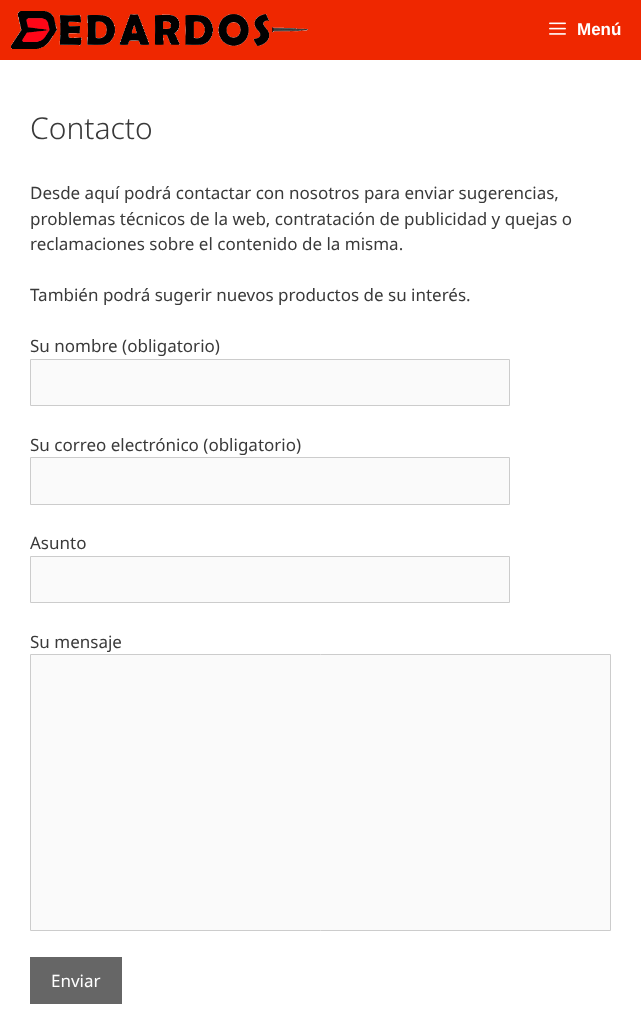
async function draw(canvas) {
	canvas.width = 641;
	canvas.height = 1017;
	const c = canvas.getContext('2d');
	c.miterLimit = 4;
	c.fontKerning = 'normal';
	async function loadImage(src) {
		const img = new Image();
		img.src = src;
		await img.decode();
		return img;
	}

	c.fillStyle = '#fff';
	c.fillRect(0, 0, 641, 1017);
	c.fillStyle = '#ef2700';
	c.fillRect(0, 0, 641, 60);
	c.drawImage(await loadImage('img1.png'), 11, 11, 297, 38);
	c.drawImage(await loadImage('img2.png'), 549, 22, 17, 13);
	c.font = 'bold 17px Liberation Sans';
	c.fillStyle = '#fff';
	c.fillText('Menú', 577, 35);
	c.font = '300 30px Noto Sans';
	c.fillStyle = '#3a3a3a';
	c.fillText('Contacto', 30, 139);
	c.font = '17px Noto Sans';
	for (const [text, x, y] of [
		['Desde aquí podrá contactar con nosotros para enviar sugerencias,', 30, 199],
		['problemas técnicos de la web, contratación de publicidad y quejas o', 30, 225],
		['reclamaciones sobre el contenido de la misma.', 30, 250],
		['También podrá sugerir nuevos productos de su interés.', 30, 301],
		['Su nombre (obligatorio)', 30, 352],
	]) {
		c.fillText(text, x, y);
	}
	c.fillStyle = '#fafafa';
	c.beginPath();
	c.rect(30.5, 359.5, 479, 46);
	c.fill();
	c.strokeStyle = '#ccc';
	c.stroke();
	c.fillStyle = '#3a3a3a';
	c.fillText('Su correo electrónico (obligatorio)', 30, 451);
	c.fillStyle = '#fafafa';
	c.beginPath();
	c.rect(30.5, 457.5, 479, 47);
	c.fill();
	c.stroke();
	c.fillStyle = '#3a3a3a';
	c.fillText('Asunto', 30, 549);
	c.fillStyle = '#fafafa';
	c.beginPath();
	c.rect(30.5, 556.5, 479, 46);
	c.fill();
	c.stroke();
	c.fillStyle = '#3a3a3a';
	c.fillText('Su mensaje', 30, 648);
	c.fillStyle = '#fafafa';
	c.beginPath();
	c.rect(30.5, 654.5, 580, 276);
	c.fill();
	c.stroke();
	c.fillStyle = '#666';
	c.fillRect(30, 957, 92, 47);
	c.fillStyle = '#fff';
	c.fillText('Enviar', 51, 987);
}

draw(document.querySelector('canvas'));
